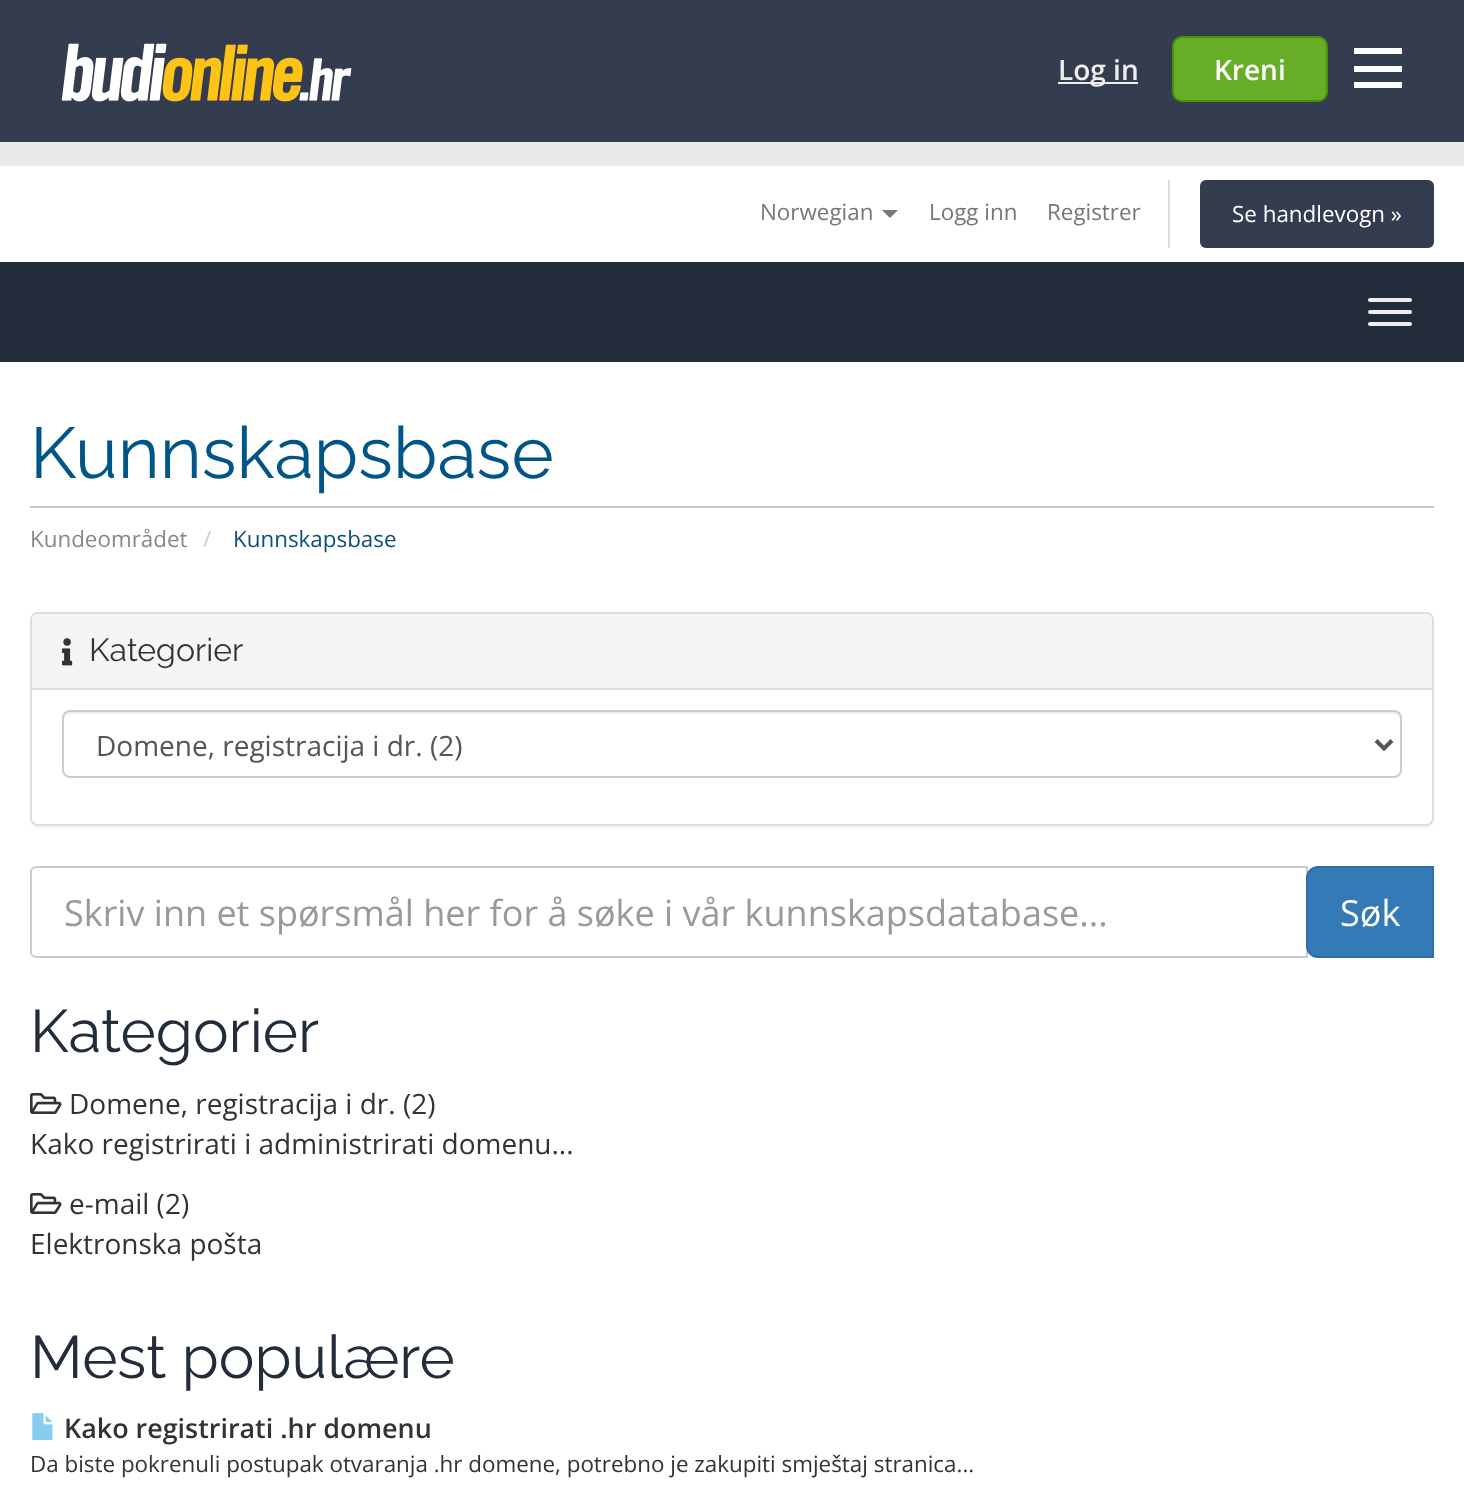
async function draw(canvas) {
	canvas.width = 1464;
	canvas.height = 1500;
	const c = canvas.getContext('2d');
	c.miterLimit = 4;
	c.fontKerning = 'normal';
	async function loadImage(src) {
		const img = new Image();
		img.src = src;
		await img.decode();
		return img;
	}

	c.fillStyle = '#fff';
	c.fillRect(0, 0, 1464, 1500);
	c.fillStyle = '#343c4f';
	c.fillRect(0, 0, 1464, 142);
	c.drawImage(await loadImage('img1.png'), 61, 43, 291, 59);
	c.fillStyle = '#eee';
	c.fillRect(1058, 82, 80, 2);
	c.font = '600 28px Open Sans';
	c.fillText('Log in', 1058, 80);
	c.fillStyle = '#67ad27';
	c.beginPath();
	c.roundRect(1173, 37, 154, 64, 9);
	c.fill();
	c.strokeStyle = '#489205';
	c.lineWidth = 2;
	c.stroke();
	c.fillStyle = '#fff';
	c.fillText('Kreni', 1214, 80);
	for (const [x, y, w, h, color] of [
		[1354, 48, 48, 6, '#fff'],
		[1354, 66, 48, 6, '#fff'],
		[1354, 82, 48, 6, '#fff'],
		[0, 142, 1464, 24, '#e9e9e9'],
	]) {
		c.fillStyle = color;
		c.fillRect(x, y, w, h);
	}
	c.font = '22.4px Open Sans';
	c.fillStyle = '#777';
	c.fillText('Norwegian', 760, 220);
	c.beginPath();
	c.moveTo(882, 210);
	c.lineTo(898, 210);
	c.lineTo(890, 218);
	c.closePath();
	c.fill();
	c.fillText('Logg inn', 929, 220);
	c.fillText('Registrer', 1047, 220);
	c.fillStyle = '#ddd';
	c.fillRect(1168, 180, 2, 68);
	c.fillStyle = '#343c4f';
	c.beginPath();
	c.roundRect(1200, 180, 234, 68, 6);
	c.fill();
	c.fillStyle = '#fff';
	c.fillText('Se handlevogn »', 1232, 222);
	c.fillStyle = '#232c3b';
	c.fillRect(0, 262, 1464, 100);
	c.fillStyle = '#eee';
	c.beginPath();
	c.roundRect(1368, 298, 44, 4, 2);
	c.fill();
	c.beginPath();
	c.roundRect(1368, 310, 44, 4, 2);
	c.fill();
	c.beginPath();
	c.roundRect(1368, 322, 44, 4, 2);
	c.fill();
	c.fillStyle = '#ccc';
	c.fillRect(30, 506, 1404, 2);
	c.font = '72px Raleway';
	c.fillStyle = '#058';
	c.fillText('Kunnskapsbase', 30, 478);
	c.font = '22.4px Open Sans';
	c.fillStyle = '#888';
	c.fillText('Kundeområdet', 30, 547);
	c.fillStyle = '#ccc';
	c.fillText('/', 203, 547);
	c.fillStyle = '#0e5077';
	c.fillText('Kunnskapsbase', 233, 547);
	c.fillStyle = '#0000000d';
	c.filter = 'blur(1px)';
	c.beginPath();
	c.roundRect(30, 614, 1404, 214, 8);
	c.fill();
	c.filter = 'none';
	c.fillStyle = '#fff';
	c.beginPath();
	c.roundRect(31, 613, 1402, 212, 7);
	c.fill();
	c.strokeStyle = '#ddd';
	c.stroke();
	c.fillStyle = '#f5f5f5';
	c.beginPath();
	c.roundRect(32, 614, 1400, 76, [6, 6, 0, 0]);
	c.fill();
	c.fillStyle = '#ddd';
	c.fillRect(32, 688, 1400, 2);
	c.drawImage(await loadImage('img2.png'), 62, 638, 11, 28);
	c.font = '32px Raleway';
	c.fillStyle = '#333';
	c.fillText('Kategorier', 89, 661);
	c.fillStyle = '#ececec';
	c.beginPath();
	c.moveTo(70, 714);
	c.lineTo(1394, 714);
	c.bezierCurveTo(1397, 714, 1400, 717, 1400, 720);
	c.lineTo(1400, 718);
	c.bezierCurveTo(1400, 715, 1397, 712, 1394, 712);
	c.lineTo(70, 712);
	c.bezierCurveTo(67, 712, 64, 715, 64, 718);
	c.lineTo(64, 720);
	c.bezierCurveTo(64, 717, 67, 714, 70, 714);
	c.closePath();
	c.fill();
	c.beginPath();
	c.roundRect(63, 711, 1338, 66, 7);
	c.strokeStyle = '#ccc';
	c.stroke();
	c.beginPath();
	c.moveTo(1376, 740.5);
	c.lineTo(1384, 748.5);
	c.lineTo(1392, 740.5);
	c.strokeStyle = '#555';
	c.lineWidth = 4;
	c.stroke();
	c.font = '28px Open Sans';
	c.fillStyle = '#555';
	c.fillText('Domene, registracija i dr. (2)', 96, 756);
	c.beginPath();
	c.roundRect(31, 867, 1276, 90, [5, 0, 0, 5]);
	c.strokeStyle = '#ccc';
	c.lineWidth = 2;
	c.stroke();
	c.font = '36px Open Sans';
	c.fillStyle = '#999';
	c.fillText('Skriv inn et spørsmål her for å søke i vår kunnskapsdatabase...', 64, 926);
	c.fillStyle = '#337ab7';
	c.beginPath();
	c.roundRect(1307, 867, 126, 90, [11, 0, 0, 11]);
	c.fill();
	c.strokeStyle = '#2e6da4';
	c.stroke();
	c.fillStyle = '#fff';
	c.fillText('Søk', 1340, 926);
	c.font = '60px Raleway';
	c.fillStyle = '#232c3b';
	c.fillText('Kategorier', 30, 1052);
	c.drawImage(await loadImage('img3.png'), 30, 1093, 32, 21);
	c.font = '28px Open Sans';
	c.fillStyle = '#333';
	c.fillText('Domene, registracija i dr. (2)', 69, 1114);
	c.fillText('Kako registrirati i administrirati domenu...', 30, 1154);
	c.drawImage(await loadImage('img3.png'), 30, 1193, 32, 21);
	c.fillText('e-mail (2)', 69, 1214);
	c.fillText('Elektronska pošta', 30, 1254);
	c.font = '60px Raleway';
	c.fillStyle = '#232c3b';
	c.fillText('Mest populære', 30, 1378);
	c.drawImage(await loadImage('img4.png'), 32, 1413, 21, 27);
	c.font = '600 26.9px Open Sans';
	c.fillStyle = '#333';
	c.fillText('Kako registrirati .hr domenu', 64, 1438);
	c.font = '22.4px Open Sans';
	c.fillText('Da biste pokrenuli postupak otvaranja .hr domene, potrebno je zakupiti smještaj stranica...', 30, 1472);
}

draw(document.querySelector('canvas'));
